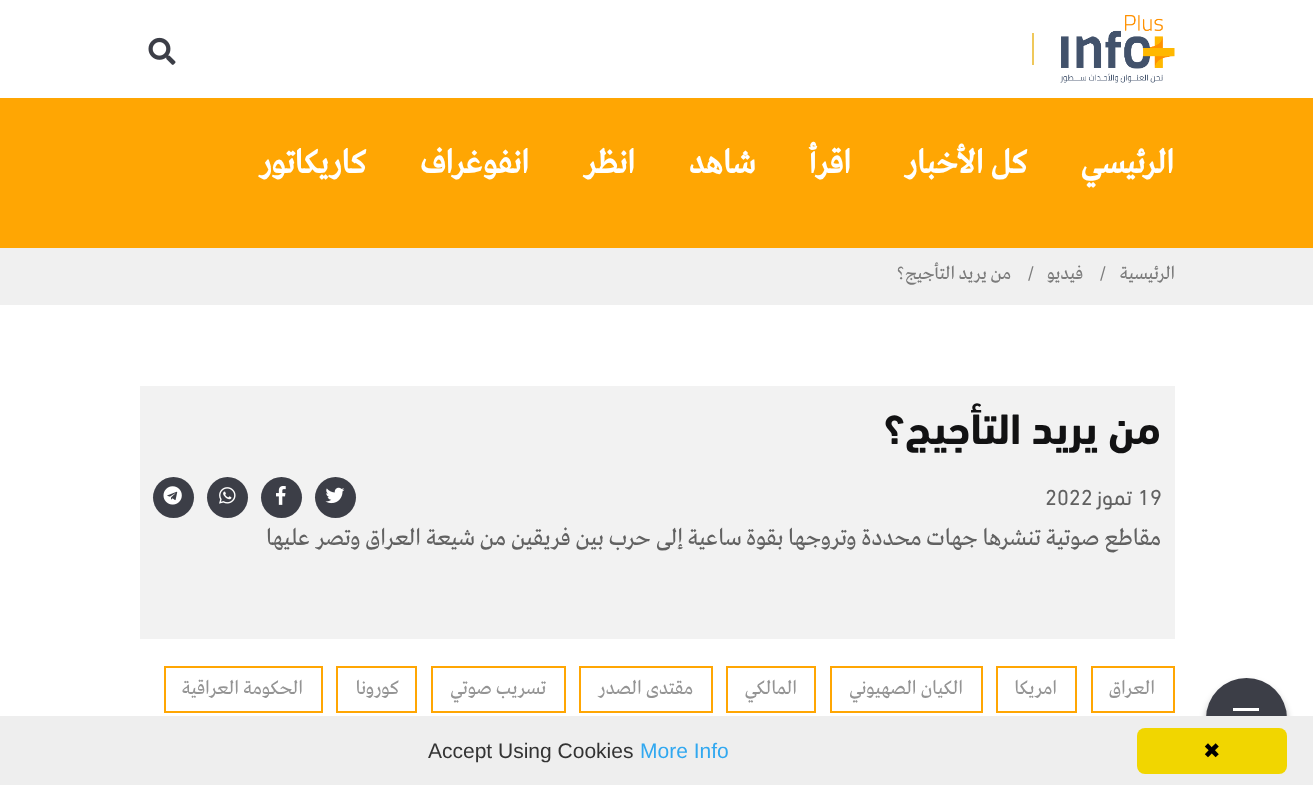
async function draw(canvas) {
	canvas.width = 1313;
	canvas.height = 785;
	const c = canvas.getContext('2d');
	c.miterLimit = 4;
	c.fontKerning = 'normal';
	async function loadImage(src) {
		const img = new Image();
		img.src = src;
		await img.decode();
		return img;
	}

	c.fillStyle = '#fff';
	c.fillRect(0, 0, 1313, 785);
	c.drawImage(await loadImage('img1.png'), 1060, 15, 115, 68);
	c.fillStyle = '#efc85b';
	c.fillRect(1032, 33, 2, 32);
	c.drawImage(await loadImage('img2.png'), 148, 37, 28, 28);
	c.fillStyle = '#0000004d';
	c.filter = 'blur(3.5px)';
	c.beginPath();
	c.roundRect(1206, 683, 81, 81, 40.5);
	c.fill();
	c.filter = 'none';
	c.fillStyle = '#3c3e47';
	c.beginPath();
	c.arc(1246.5, 718.5, 40.5, 0, 2 * Math.PI);
	c.fill();
	c.fillStyle = '#fff';
	c.fillRect(1233, 708, 26, 3);
	c.fillStyle = '#ffa603';
	c.fillRect(0, 98, 1313, 150);
	c.direction = 'rtl';
	c.font = 'bold 34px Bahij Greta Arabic';
	c.fillStyle = '#fff';
	for (const [text, x, y] of [
		['الرئيسي', 1174, 173],
		['كل الأخبار', 1027, 173],
		['اقرأ', 851, 173],
		['شاهد', 755, 173],
		['انظر', 635, 173],
		['انفوغراف', 529, 173],
		['كاريكاتور', 366, 173],
	]) {
		c.fillText(text, x, y);
	}
	c.fillStyle = '#f0f0f0';
	c.fillRect(0, 248, 1313, 57);
	c.font = '19px Bahij Greta Arabic';
	c.fillStyle = '#7b7b7b';
	c.fillText('الرئيسية', 1175, 279);
	c.direction = 'ltr';
	c.fillText('/', 1100, 279);
	c.direction = 'rtl';
	c.fillText('فيديو', 1083, 279);
	c.direction = 'ltr';
	c.fillText('/', 1028, 279);
	c.direction = 'rtl';
	c.fillText('من يريد التأجيج؟', 1011, 279);
	c.fillStyle = '#f2f2f2';
	c.fillRect(140, 386, 1035, 253);
	c.font = 'bold 43.25px "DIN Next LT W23"';
	c.fillStyle = '#121213';
	c.fillText('من يريد التأجيج؟', 1161, 444);
	c.direction = 'ltr';
	c.font = '22px "DIN Next LT W23"';
	c.fillStyle = '#616161';
	c.fillText('19', 1138, 505);
	c.direction = 'rtl';
	c.fillText('تموز', 1132, 505);
	c.direction = 'ltr';
	c.fillText('2022', 1045, 505);
	c.fillStyle = '#3c3e47';
	c.beginPath();
	c.arc(335.5, 497.5, 20.5, 0, 2 * Math.PI);
	c.fill();
	c.drawImage(await loadImage('img3.png'), 325, 487, 20, 17);
	c.beginPath();
	c.arc(281.5, 497.5, 20.5, 0, 2 * Math.PI);
	c.fill();
	c.drawImage(await loadImage('img4.png'), 276, 486, 10, 19);
	c.beginPath();
	c.arc(227.5, 497.5, 20.5, 0, 2 * Math.PI);
	c.fill();
	c.drawImage(await loadImage('img5.png'), 219, 487, 17, 17);
	c.beginPath();
	c.arc(173.5, 497.5, 20.5, 0, 2 * Math.PI);
	c.fill();
	c.drawImage(await loadImage('img6.png'), 163, 486, 19, 19);
	c.direction = 'rtl';
	c.font = '24.3px Bahij Greta Arabic';
	c.fillStyle = '#616161';
	c.fillText('مقاطع صوتية تنشرها جهات محددة وتروجها بقوة ساعية إلى حرب بين فريقين من شيعة العراق وتصر عليها', 1161, 545);
	c.strokeStyle = '#ffa603';
	c.lineWidth = 2;
	c.strokeRect(1092, 667, 82, 45);
	c.font = '20.25px Bahij Greta Arabic';
	c.fillStyle = '#949494';
	c.fillText('العراق', 1155, 694);
	c.strokeRect(997, 667, 79, 45);
	c.fillText('امريكا', 1057, 694);
	c.strokeRect(831, 667, 151, 45);
	c.fillText('الكيان الصهيوني', 963, 694);
	c.strokeRect(727, 667, 88, 45);
	c.fillText('المالكي', 797, 694);
	c.strokeRect(580, 667, 132, 45);
	c.fillText('مقتدى الصدر', 693, 694);
	c.strokeRect(432, 667, 133, 45);
	c.fillText('تسريب صوتي', 546, 694);
	c.strokeRect(337, 667, 79, 45);
	c.fillText('كورونا', 399, 694);
	c.strokeRect(165, 667, 157, 45);
	c.fillText('الحكومة العراقية', 303, 694);
	c.fillStyle = '#eee';
	c.fillRect(0, 716, 1313, 69);
	c.fillStyle = '#f1d600';
	c.beginPath();
	c.roundRect(1137, 728, 150, 46, 8);
	c.fill();
	c.direction = 'ltr';
	c.font = '21px DejaVu Sans';
	c.fillStyle = '#000';
	c.fillText('✖', 1203, 758);
	c.font = '21px Liberation Sans';
	c.fillStyle = '#31a8f0';
	c.fillText('More Info', 640, 758);
	c.fillStyle = '#333';
	c.fillText('Accept Using Cookies', 428, 758);
}

draw(document.querySelector('canvas'));
